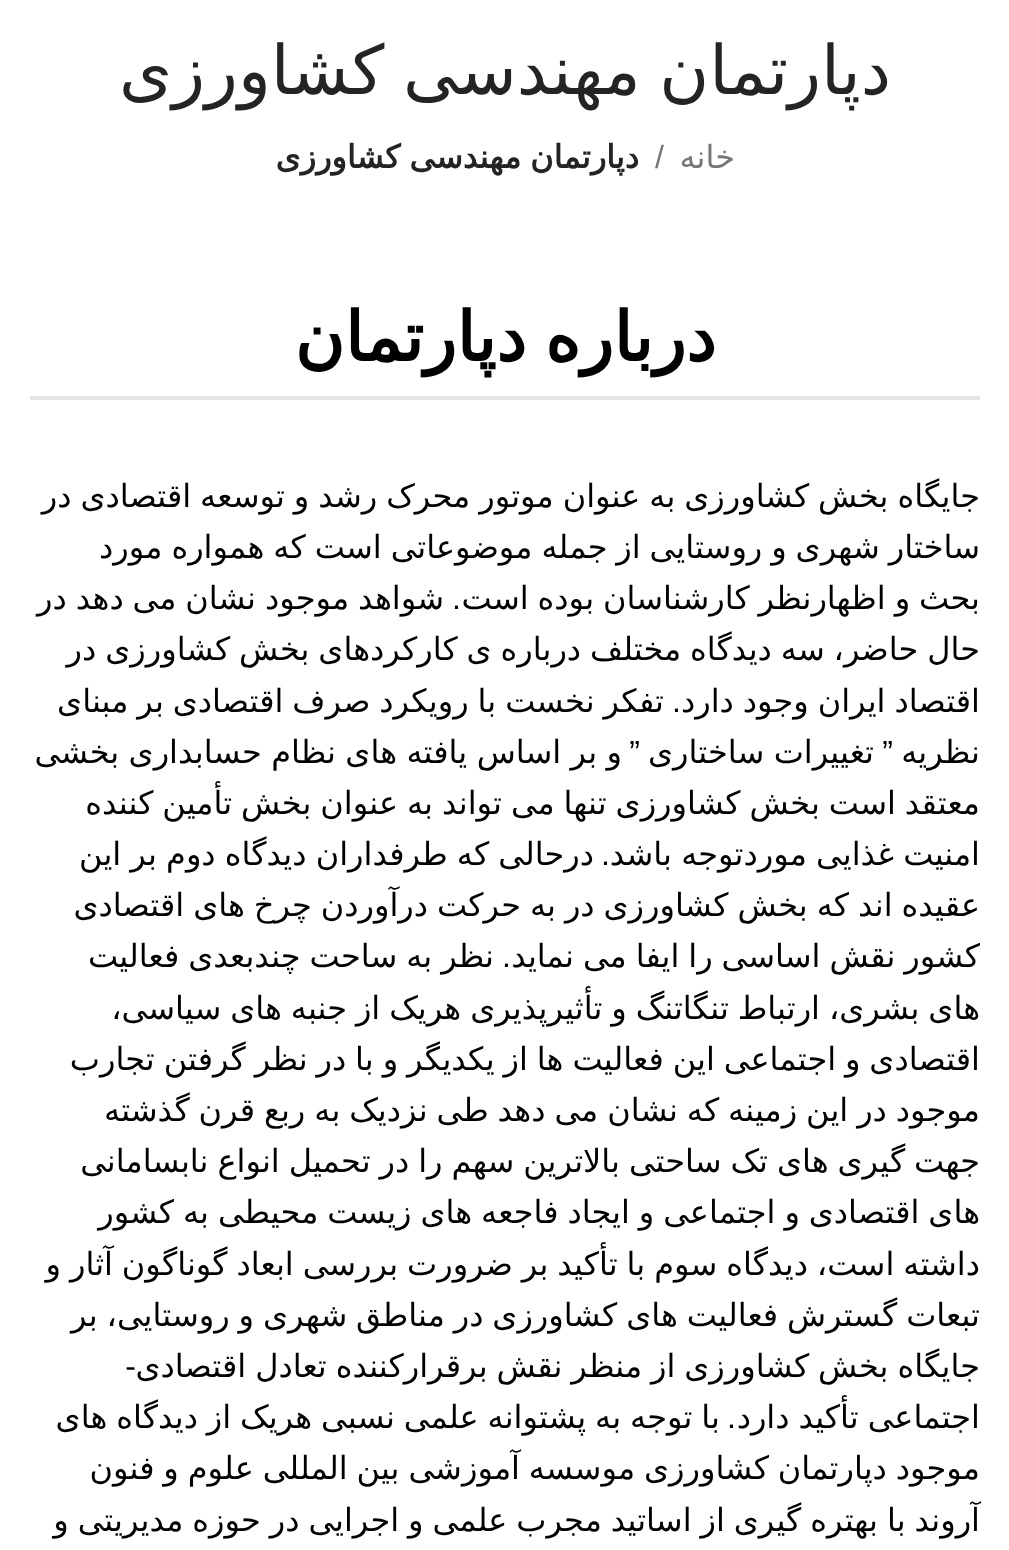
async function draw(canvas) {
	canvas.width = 1009;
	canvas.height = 1550;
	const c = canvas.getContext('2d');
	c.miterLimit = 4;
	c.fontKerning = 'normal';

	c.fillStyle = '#fff';
	c.fillRect(0, 0, 1009, 1550);
	c.wordSpacing = '-3px';
	c.direction = 'rtl';
	c.font = '68px DejaVu Sans';
	c.fillStyle = '#242424';
	c.fillText('دپارتمان مهندسی کشاورزی', 891, 94);
	c.wordSpacing = '0px';
	c.font = '32px DejaVu Sans';
	c.fillStyle = '#767676';
	c.fillText('خانه', 735, 168);
	c.direction = 'ltr';
	c.font = '32px Liberation Sans';
	c.fillText('/', 655, 168);
	c.wordSpacing = '-1.25px';
	c.direction = 'rtl';
	c.font = 'bold 32px DejaVu Sans';
	c.fillStyle = '#242424';
	c.fillText('دپارتمان مهندسی کشاورزی', 639, 168);
	c.fillStyle = '#e4e4e4';
	c.fillRect(30, 396, 950, 4);
	c.wordSpacing = '-3px';
	c.font = 'bold 68px DejaVu Sans';
	c.fillStyle = '#000';
	c.fillText('درباره دپارتمان', 716, 361);
	c.wordSpacing = '-1.25px';
	c.font = '32px DejaVu Sans';
	for (const [text, x, y] of [
		['جایگاه بخش کشاورزی به عنوان موتور محرک رشد و توسعه اقتصادی در', 980, 507],
		['ساختار شهری و روستایی از جمله موضوعاتی است که همواره مورد', 980, 558],
		['بحث و اظهارنظر کارشناسان بوده است', 980, 609],
	]) {
		c.fillText(text, x, y);
	}
	c.wordSpacing = '0px';
	c.font = '32px Liberation Sans';
	c.fillText('.', 461, 609);
	c.wordSpacing = '-1.25px';
	c.font = '32px DejaVu Sans';
	for (const [text, x, y] of [
		['شواهد موجود نشان می دهد در', 444, 609],
		['حال حاضر، سه دیدگاه مختلف درباره ی کارکردهای بخش کشاورزی در', 980, 660],
		['اقتصاد ایران وجود دارد', 980, 712],
	]) {
		c.fillText(text, x, y);
	}
	c.wordSpacing = '0px';
	c.font = '32px Liberation Sans';
	c.fillText('.', 681, 712);
	c.wordSpacing = '-1.25px';
	c.font = '32px DejaVu Sans';
	c.fillText('تفکر نخست با رویکرد صرف اقتصادی بر مبنای', 664, 712);
	c.wordSpacing = '0px';
	c.fillText('نظریه', 980, 763);
	c.font = '32px Liberation Sans';
	c.fillText('”', 893, 763);
	c.wordSpacing = '-0.75px';
	c.font = '32px DejaVu Sans';
	c.fillText('تغییرات ساختاری', 874, 763);
	c.wordSpacing = '0px';
	c.font = '32px Liberation Sans';
	c.fillText('”', 640, 763);
	c.wordSpacing = '-0.75px';
	c.font = '32px DejaVu Sans';
	c.fillText('و بر اساس یافته های نظام حسابداری بخشی', 622, 763);
	c.wordSpacing = '-1.25px';
	c.fillText('معتقد است بخش کشاورزی تنها می تواند به عنوان بخش تأمین کننده', 980, 814);
	c.wordSpacing = '-1px';
	c.fillText('امنیت غذایی موردتوجه باشد', 980, 865);
	c.wordSpacing = '0px';
	c.font = '32px Liberation Sans';
	c.fillText('.', 610, 865);
	c.wordSpacing = '-1px';
	c.font = '32px DejaVu Sans';
	c.fillText('درحالی که طرفداران دیدگاه دوم بر این', 594, 865);
	c.wordSpacing = '-1.25px';
	c.fillText('عقیده اند که بخش کشاورزی در به حرکت درآوردن چرخ های اقتصادی', 980, 916);
	c.fillText('کشور نقش اساسی را ایفا می نماید', 980, 967);
	c.wordSpacing = '0px';
	c.font = '32px Liberation Sans';
	c.fillText('.', 511, 967);
	c.wordSpacing = '-1.25px';
	c.font = '32px DejaVu Sans';
	for (const [text, x, y] of [
		['نظر به ساحت چندبعدی فعالیت', 494, 967],
		['های بشری، ارتباط تنگاتنگ و تأثیرپذیری هریک از جنبه های سیاسی،', 980, 1019],
		['اقتصادی و اجتماعی این فعالیت ها از یکدیگر و با در نظر گرفتن تجارب', 980, 1070],
		['موجود در این زمینه که نشان می دهد طی نزدیک به ربع قرن گذشته', 980, 1121],
		['جهت گیری های تک ساحتی بالاترین سهم را در تحمیل انواع نابسامانی', 980, 1172],
		['های اقتصادی و اجتماعی و ایجاد فاجعه های زیست محیطی به کشور', 980, 1223],
		['داشته است، دیدگاه سوم با تأکید بر ضرورت بررسی ابعاد گوناگون آثار و', 980, 1275],
		['تبعات گسترش فعالیت های کشاورزی در مناطق شهری و روستایی، بر', 980, 1326],
		['جایگاه بخش کشاورزی از منظر نقش برقرارکننده تعادل اقتصادی', 980, 1377],
	]) {
		c.fillText(text, x, y);
	}
	c.wordSpacing = '0px';
	c.font = '32px Liberation Sans';
	c.fillText('-', 136, 1377);
	c.wordSpacing = '-1.25px';
	c.font = '32px DejaVu Sans';
	c.fillText('اجتماعی تأکید دارد', 980, 1428);
	c.wordSpacing = '0px';
	c.font = '32px Liberation Sans';
	c.fillText('.', 736, 1428);
	c.wordSpacing = '-1.25px';
	c.font = '32px DejaVu Sans';
	for (const [text, x, y] of [
		['با توجه به پشتوانه علمی نسبی هریک از دیدگاه های', 720, 1428],
		['موجود دپارتمان کشاورزی موسسه آموزشی بین المللی علوم و فنون', 980, 1479],
		['آروند با بهتره گیری از اساتید مجرب علمی و اجرایی در حوزه مدیریتی و', 980, 1531],
	]) {
		c.fillText(text, x, y);
	}
}

draw(document.querySelector('canvas'));
